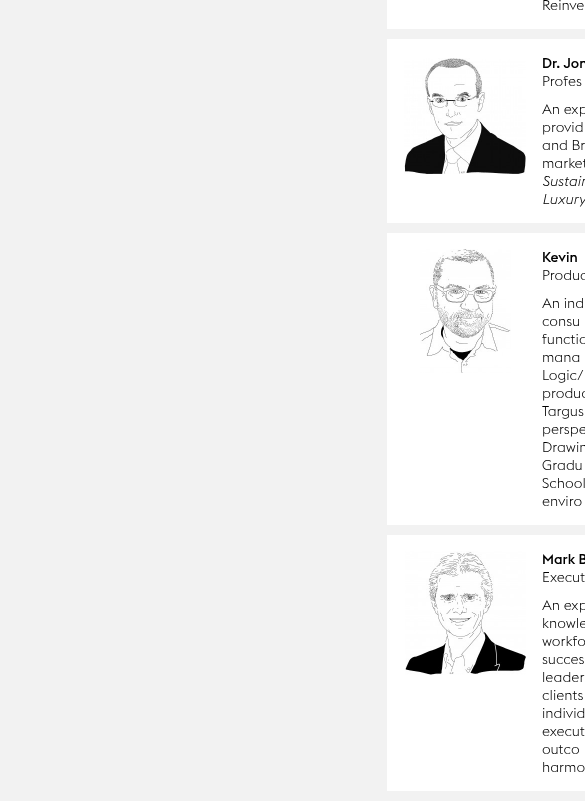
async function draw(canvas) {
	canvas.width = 585;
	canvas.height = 801;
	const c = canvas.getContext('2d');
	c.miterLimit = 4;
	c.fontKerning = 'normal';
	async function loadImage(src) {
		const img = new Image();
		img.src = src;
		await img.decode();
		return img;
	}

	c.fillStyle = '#f2f2f2';
	c.fillRect(0, 0, 585, 801);
	c.fillStyle = '#fff';
	c.fillRect(387, 0, 198, 29);
	c.font = '300 14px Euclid';
	c.fillStyle = '#000';
	c.fillText('Reinve', 542, 10);
	c.fillStyle = '#fff';
	c.fillRect(387, 39, 198, 184);
	c.drawImage(await loadImage('img1.png'), 404, 58, 122, 116);
	c.font = '500 14px Euclid';
	c.fillStyle = '#000';
	c.fillText('Dr. Jon', 542, 68);
	c.font = '300 14px Euclid';
	for (const [text, x, y] of [
		['Profes', 542, 86],
		['An exp', 542, 114],
		['provid', 542, 132],
		['and Br', 542, 150],
		['market', 542, 168],
	]) {
		c.fillText(text, x, y);
	}
	c.font = 'italic 300 14px Euclid';
	c.fillText('Sustain', 542, 186);
	c.fillText('Luxury', 542, 204);
	c.fillStyle = '#fff';
	c.fillRect(387, 233, 198, 292);
	c.drawImage(await loadImage('img2.png'), 420, 249, 91, 124);
	c.font = '500 14px Euclid';
	c.fillStyle = '#000';
	c.fillText('Kevin', 542, 262);
	c.font = '300 14px Euclid';
	for (const [text, x, y] of [
		['Produc', 542, 280],
		['An ind', 542, 308],
		['consu', 542, 326],
		['functio', 542, 344],
		['mana', 542, 362],
		['Logic/', 542, 380],
		['produc', 542, 398],
		['Targus', 542, 416],
		['perspe', 542, 434],
		['Drawin', 542, 452],
		['Gradu', 542, 470],
		['School', 542, 488],
		['enviro', 542, 506],
	]) {
		c.fillText(text, x, y);
	}
	c.fillStyle = '#fff';
	c.fillRect(387, 535, 198, 256);
	c.drawImage(await loadImage('img3.png'), 405, 551, 121, 124);
	c.font = '500 14px Euclid';
	c.fillStyle = '#000';
	c.fillText('Mark B', 542, 564);
	c.font = '300 14px Euclid';
	for (const [text, x, y] of [
		['Execut', 542, 582],
		['An exp', 542, 610],
		['knowle', 542, 628],
		['workfo', 542, 646],
		['succes', 542, 664],
		['leader', 542, 682],
		['clients', 542, 700],
		['individ', 542, 718],
		['execut', 542, 736],
		['outco', 542, 754],
		['harmo', 542, 772],
	]) {
		c.fillText(text, x, y);
	}
}

draw(document.querySelector('canvas'));
